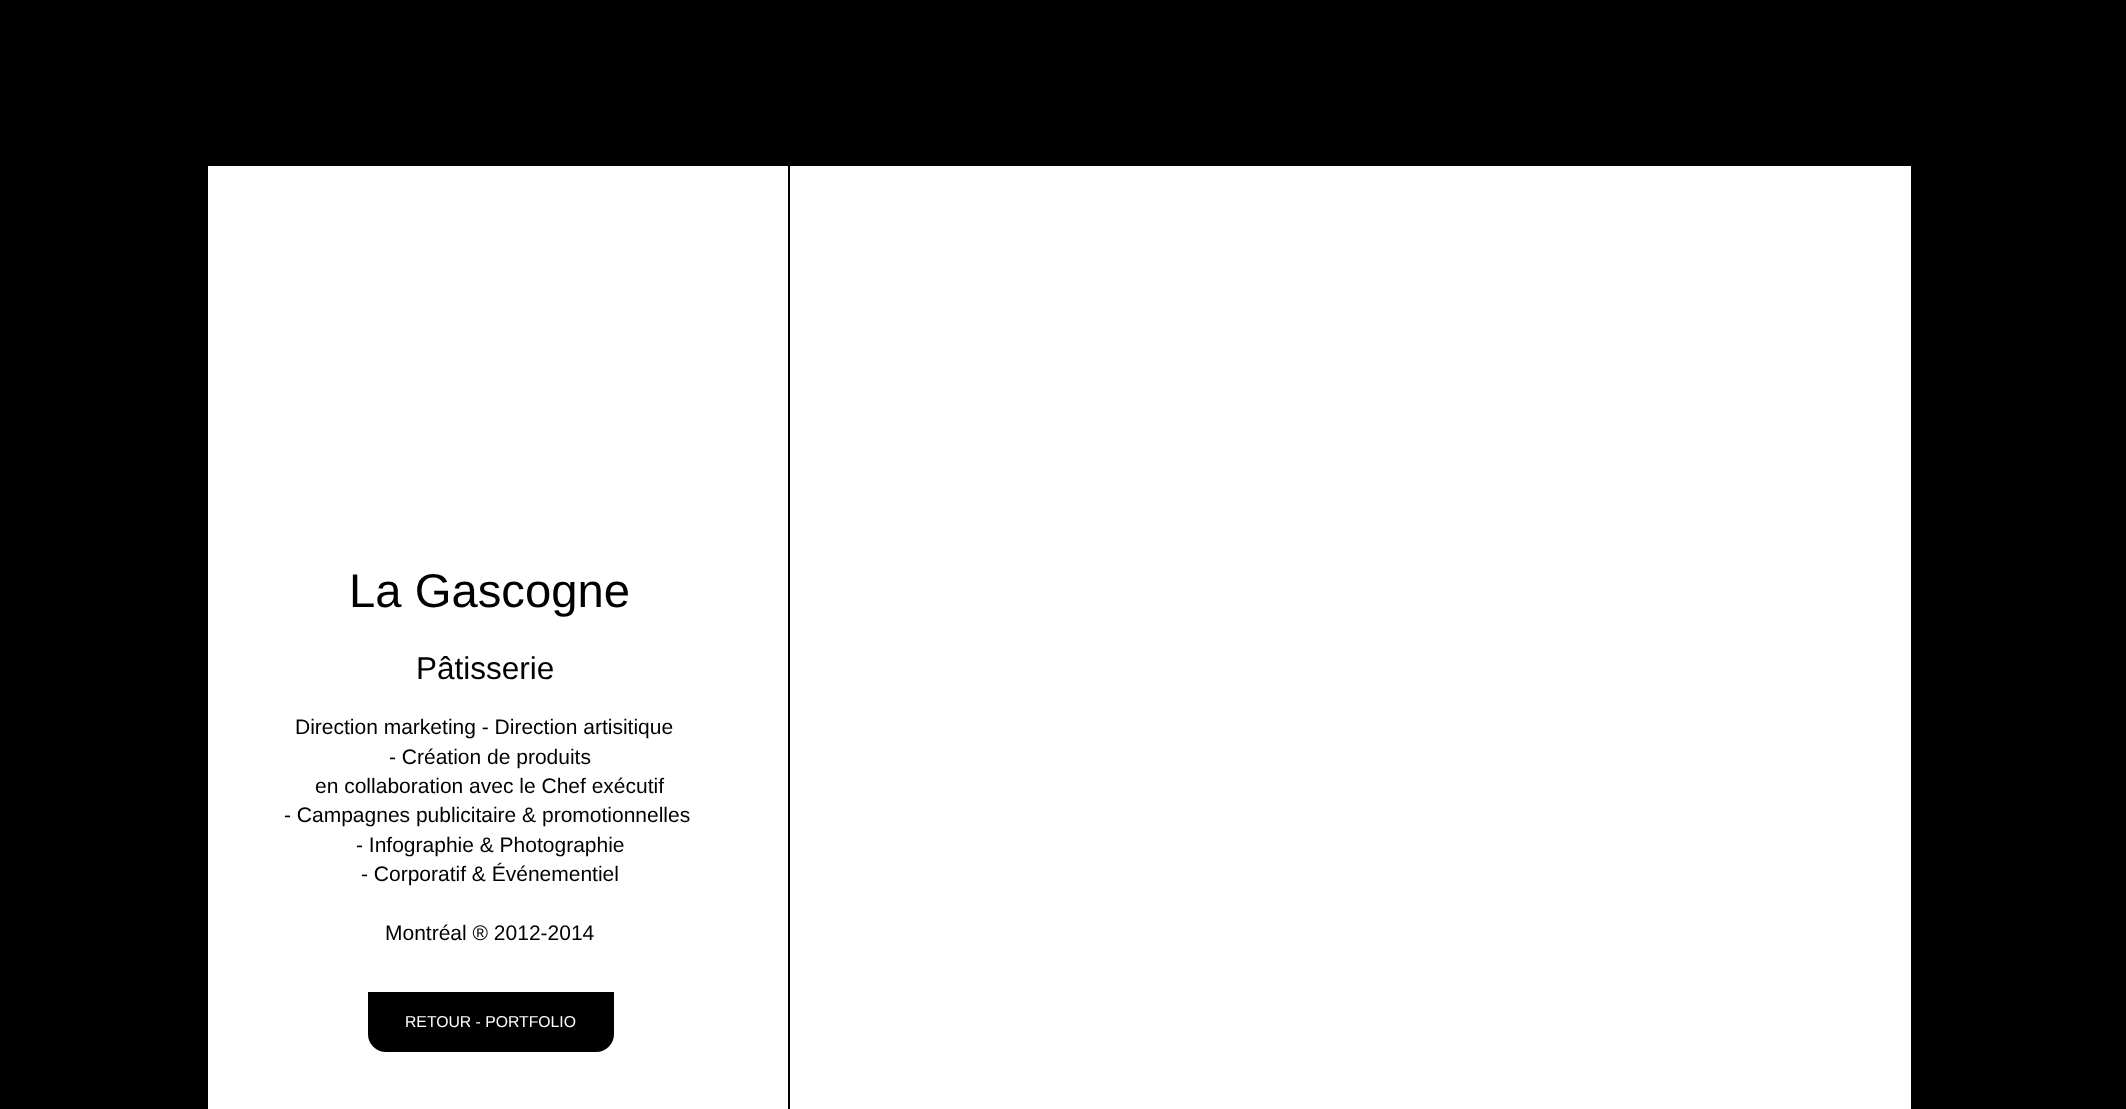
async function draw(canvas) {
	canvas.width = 2126;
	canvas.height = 1109;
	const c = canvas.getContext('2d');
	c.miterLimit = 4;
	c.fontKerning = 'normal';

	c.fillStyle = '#000';
	c.fillRect(0, 0, 2126, 1109);
	c.fillStyle = '#fff';
	c.fillRect(208, 166, 1703, 943);
	c.font = '47.25px Liberation Sans';
	c.fillStyle = '#000';
	c.fillText('La Gascogne', 349, 607);
	c.font = '31.5px Liberation Sans';
	c.fillText('Pâtisserie', 416, 679);
	c.font = '21px Liberation Sans';
	for (const [text, x, y] of [
		['Direction marketing - Direction artisitique', 295, 734],
		['- Création de produits', 389, 764],
		['en collaboration avec le Chef exécutif', 315, 793],
		['- Campagnes publicitaire & promotionnelles', 284, 822],
		['- Infographie & Photographie', 356, 852],
		['- Corporatif & Événementiel', 361, 881],
		['Montréal ® 2012-2014', 385, 940],
	]) {
		c.fillText(text, x, y);
	}
	c.beginPath();
	c.roundRect(368, 992, 246, 60, [0, 0, 18, 18]);
	c.fill();
	c.font = '15.75px Liberation Sans';
	c.fillStyle = '#fff';
	c.fillText('RETOUR - PORTFOLIO', 405, 1027);
	c.fillStyle = '#000';
	c.fillRect(788, 166, 2, 943);
}

draw(document.querySelector('canvas'));
